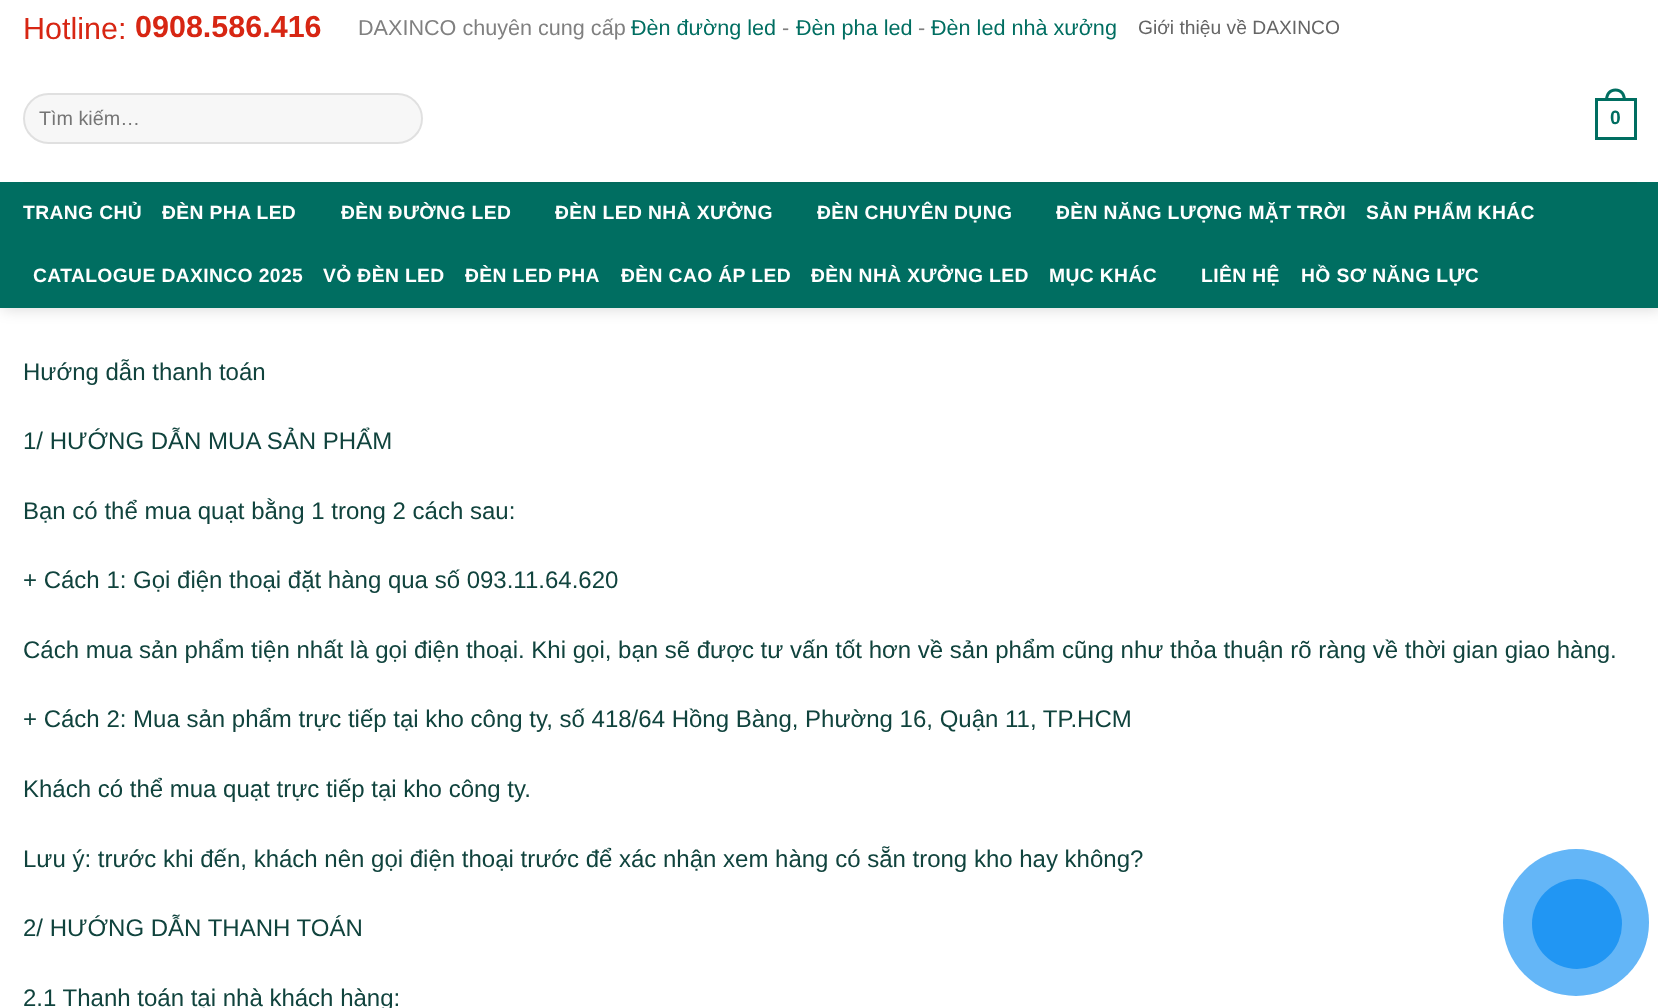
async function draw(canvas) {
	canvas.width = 1658;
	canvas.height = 1008;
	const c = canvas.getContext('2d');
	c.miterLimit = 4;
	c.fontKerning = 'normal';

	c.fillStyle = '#fff';
	c.fillRect(0, 0, 1658, 1008);
	c.fillStyle = '#00000026';
	c.filter = 'blur(7.5px)';
	c.beginPath();
	c.rect(2, 2, 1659, 307);
	c.fill();
	c.filter = 'none';
	c.fillStyle = '#fff';
	c.fillRect(0, 0, 1658, 182);
	c.font = '30.5px Liberation Sans';
	c.fillStyle = '#d72613';
	c.fillText('Hotline:', 23, 39);
	c.font = 'bold 30.5px Liberation Sans';
	c.fillText('0908.586.416', 135, 37);
	c.font = '21.6px Liberation Sans';
	c.fillStyle = '#808080';
	c.fillText('DAXINCO chuyên cung cấp', 358, 35);
	c.fillStyle = '#006e61';
	c.fillText('Đèn đường led', 631, 35);
	c.fillStyle = '#808080';
	c.fillText('-', 782, 35);
	c.fillStyle = '#006e61';
	c.fillText('Đèn pha led', 796, 35);
	c.fillStyle = '#808080';
	c.fillText('-', 918, 35);
	c.fillStyle = '#006e61';
	c.fillText('Đèn led nhà xưởng', 931, 35);
	c.font = '19.25px Liberation Sans';
	c.fillStyle = '#656565';
	c.fillText('Giới thiệu về DAXINCO', 1138, 34);
	c.fillStyle = '#f7f7f7';
	c.beginPath();
	c.roundRect(23, 93, 400, 51, 25.5);
	c.fill();
	c.beginPath();
	c.roundRect(24, 94, 398, 49, 24.5);
	c.strokeStyle = '#00000017';
	c.lineWidth = 2;
	c.stroke();
	c.font = '19.75px Liberation Sans';
	c.fillStyle = '#757575';
	c.fillText('Tìm kiếm…', 39, 125);
	c.strokeStyle = '#006e61';
	c.lineWidth = 3;
	c.strokeRect(1596.5, 99.5, 39, 39);
	c.fillStyle = '#006e61';
	c.beginPath();
	c.moveTo(1615.5, 88.5);
	c.bezierCurveTo(1622.5, 88.5, 1626, 94, 1626, 100.5);
	c.lineTo(1605, 100.5);
	c.bezierCurveTo(1605, 94, 1608.5, 88.5, 1615.5, 88.5);
	c.closePath();
	c.moveTo(1615.5, 91.5);
	c.bezierCurveTo(1621, 91.5, 1623, 96, 1623, 100.5);
	c.lineTo(1608, 100.5);
	c.bezierCurveTo(1608, 96, 1610, 91.5, 1615.5, 91.5);
	c.closePath();
	c.fill('evenodd');
	c.letterSpacing = '0.4px';
	c.font = 'bold 19.25px Liberation Sans';
	c.fillText('0', 1610, 124);
	c.fillRect(0, 182, 1658, 126);
	c.fillStyle = '#026a5d';
	c.fillRect(23, 182, 1614, 2);
	c.fillStyle = '#fff';
	for (const [text, x, y] of [
		['TRANG CHỦ', 23, 219],
		['ĐÈN PHA LED', 162, 219],
		['ĐÈN ĐƯỜNG LED', 341, 219],
		['ĐÈN LED NHÀ XƯỞNG', 555, 219],
		['ĐÈN CHUYÊN DỤNG', 817, 219],
		['ĐÈN NĂNG LƯỢNG MẶT TRỜI', 1056, 219],
		['SẢN PHẨM KHÁC', 1366, 219],
		['CATALOGUE DAXINCO 2025', 33, 282],
		['VỎ ĐÈN LED', 323, 282],
		['ĐÈN LED PHA', 465, 282],
		['ĐÈN CAO ÁP LED', 621, 282],
		['ĐÈN NHÀ XƯỞNG LED', 811, 282],
		['MỤC KHÁC', 1049, 282],
		['LIÊN HỆ', 1201, 282],
		['HỒ SƠ NĂNG LỰC', 1301, 282],
	]) {
		c.fillText(text, x, y);
	}
	c.letterSpacing = '0px';
	c.font = '24px Liberation Sans';
	c.fillStyle = '#10433d';
	for (const [text, x, y] of [
		['Hướng dẫn thanh toán', 23, 380],
		['1/ HƯỚNG DẪN MUA SẢN PHẨM', 23, 449],
		['Bạn có thể mua quạt bằng 1 trong 2 cách sau:', 23, 519],
		['+ Cách 1: Gọi điện thoại đặt hàng qua số 093.11.64.620', 23, 588],
		['Cách mua sản phẩm tiện nhất là gọi điện thoại. Khi gọi, bạn sẽ được tư vấn tốt hơn về sản phẩm cũng như thỏa thuận rõ ràng về thời gian giao hàng.', 23, 658],
		['+ Cách 2: Mua sản phẩm trực tiếp tại kho công ty, số 418/64 Hồng Bàng, Phường 16, Quận 11, TP.HCM', 23, 727],
		['Khách có thể mua quạt trực tiếp tại kho công ty.', 23, 797],
		['Lưu ý: trước khi đến, khách nên gọi điện thoại trước để xác nhận xem hàng có sẵn trong kho hay không?', 23, 867],
		['2/ HƯỚNG DẪN THANH TOÁN', 23, 936],
		['2.1 Thanh toán tại nhà khách hàng:', 23, 1006],
	]) {
		c.fillText(text, x, y);
	}
	c.fillStyle = '#64b6f7';
	c.beginPath();
	c.roundRect(1503, 849, 146, 147, 73);
	c.fill();
	c.fillStyle = '#2196f3';
	c.beginPath();
	c.arc(1577, 924, 45, 0, 2 * Math.PI);
	c.fill();
}

draw(document.querySelector('canvas'));
